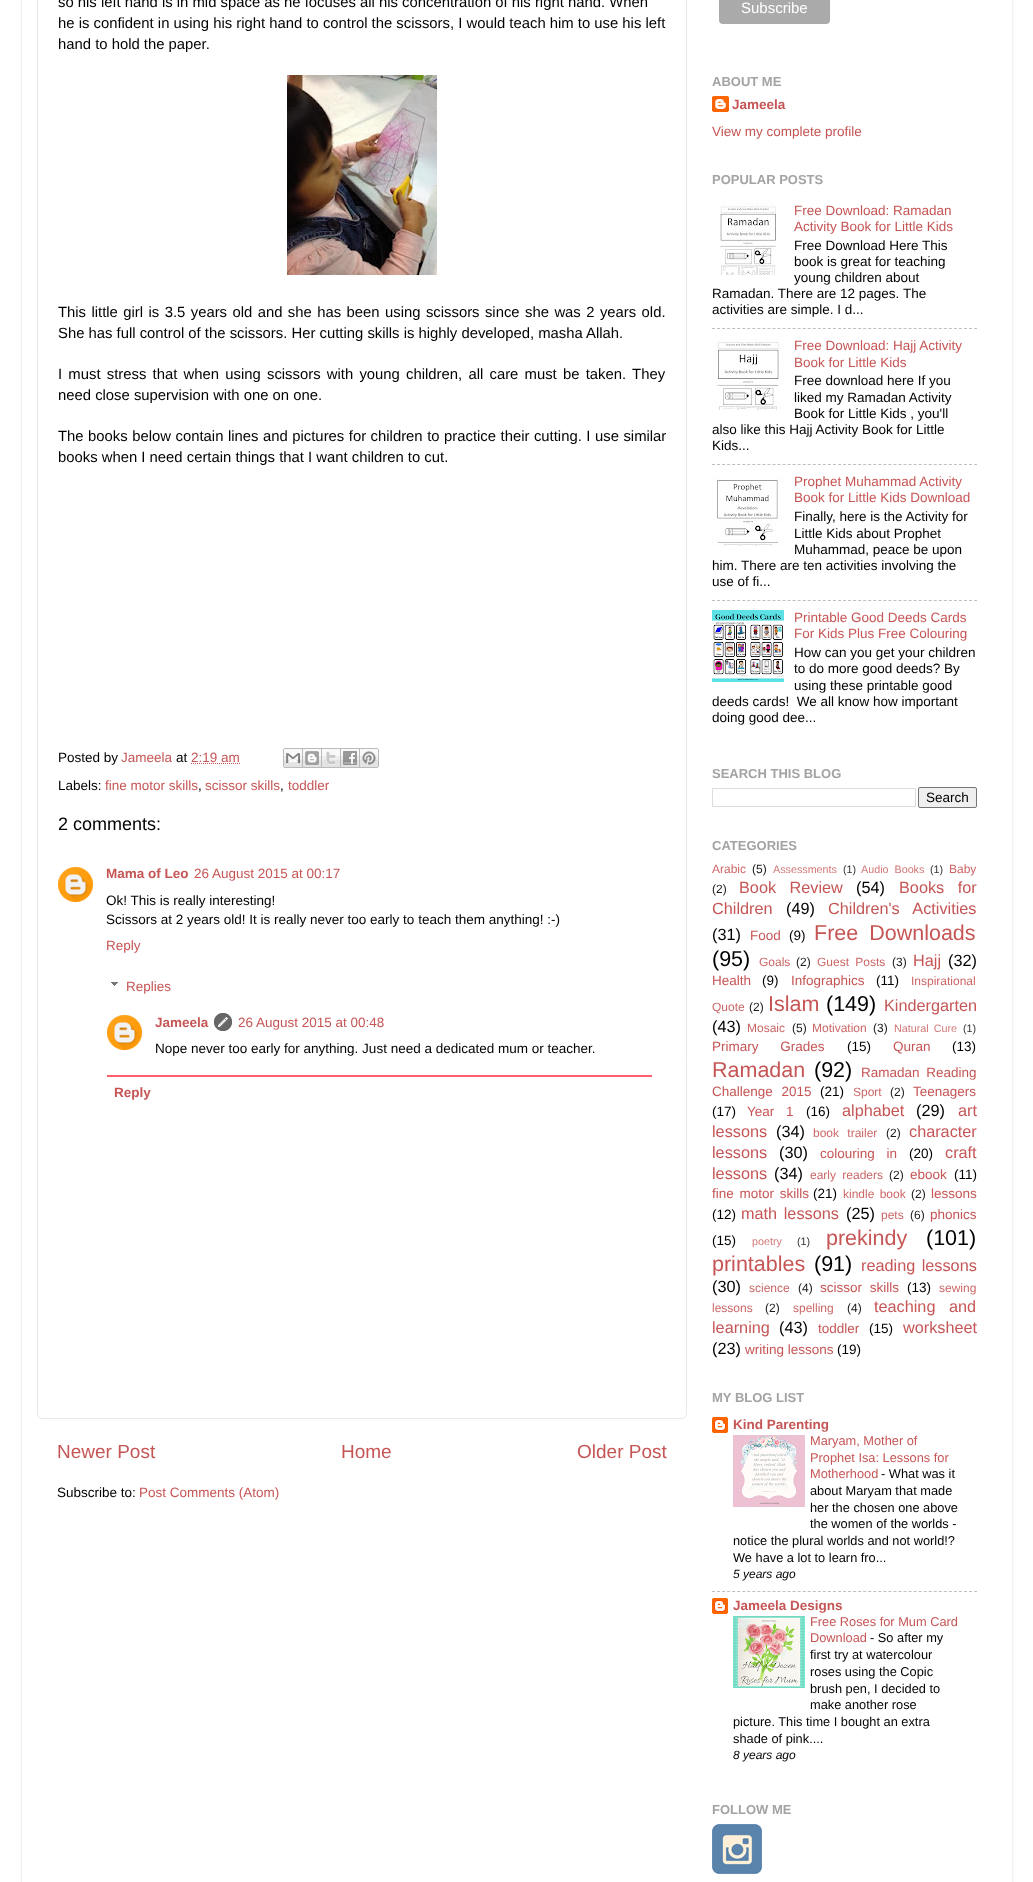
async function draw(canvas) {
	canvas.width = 1033;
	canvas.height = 1882;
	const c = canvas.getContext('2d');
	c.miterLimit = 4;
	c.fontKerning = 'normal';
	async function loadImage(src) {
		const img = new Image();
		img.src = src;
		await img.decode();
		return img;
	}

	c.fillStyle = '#fff';
	c.fillRect(0, 0, 1033, 1882);
	c.save();
	c.beginPath();
	c.moveTo(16, 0);
	c.lineTo(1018, 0);
	c.lineTo(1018, 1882);
	c.lineTo(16, 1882);
	c.closePath();
	c.moveTo(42, -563);
	c.lineTo(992, -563);
	c.bezierCurveTo(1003, -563, 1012, -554, 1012, -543);
	c.lineTo(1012, 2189);
	c.lineTo(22, 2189);
	c.lineTo(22, -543);
	c.bezierCurveTo(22, -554, 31, -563, 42, -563);
	c.closePath();
	c.clip('evenodd');
	c.fillStyle = '#00000026';
	c.filter = 'blur(1.5px)';
	c.beginPath();
	c.roundRect(22, -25, 990, 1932, 20);
	c.fill();
	c.filter = 'none';
	c.restore();
	c.beginPath();
	c.roundRect(37.5, -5.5, 649, 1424, 4.5);
	c.strokeStyle = '#e8e8e8';
	c.stroke();
	c.font = '14.85px Liberation Sans';
	c.fillStyle = '#000';
	for (const [text, x, y] of [
		['so his left hand is in mid space as he focuses all his concentration of his right hand. When', 58, 7],
		['he is confident in using his right hand to control the scissors, I would teach him to use his left', 58, 28],
		['hand to hold the paper.', 58, 49],
	]) {
		c.fillText(text, x, y);
	}
	c.drawImage(await loadImage('img1.png'), 287, 75, 150, 200);
	c.wordSpacing = '1.3px';
	c.fillText('This little girl is 3.5 years old and she has been using scissors since she was 2 years old.', 58, 317);
	c.wordSpacing = '0px';
	c.fillText('She has full control of the scissors. Her cutting skills is highly developed, masha Allah.', 58, 338);
	c.wordSpacing = '2.1px';
	c.fillText('I must stress that when using scissors with young children, all care must be taken. They', 58, 379);
	c.wordSpacing = '0px';
	c.fillText('need close supervision with one on one.', 58, 400);
	c.wordSpacing = '0.4px';
	c.fillText('The books below contain lines and pictures for children to practice their cutting. I use similar', 58, 441);
	c.wordSpacing = '0px';
	c.fillText('books when I need certain things that I want children to cut.', 58, 462);
	c.font = '13.5px Liberation Sans';
	c.fillText('Posted by', 58, 762);
	c.fillStyle = '#c65555';
	c.fillText('Jameela', 121, 762);
	c.fillStyle = '#000';
	c.fillText('at', 176, 762);
	c.fillStyle = '#c65555';
	c.fillText('2:19 am', 191, 762);
	c.beginPath();
	c.moveTo(191, 763.5);
	c.lineTo(240, 763.5);
	c.strokeStyle = '#c65555';
	c.setLineDash([1, 1]);
	c.stroke();
	c.drawImage(await loadImage('img2.png'), 283, 748, 20, 20);
	c.drawImage(await loadImage('img3.png'), 303, 748, 19, 20);
	c.drawImage(await loadImage('img4.png'), 322, 748, 19, 20);
	c.drawImage(await loadImage('img5.png'), 341, 748, 19, 20);
	c.drawImage(await loadImage('img6.png'), 360, 748, 19, 20);
	c.fillStyle = '#000';
	c.fillText('Labels:', 58, 790);
	c.fillStyle = '#c65555';
	c.fillText('fine motor skills', 105, 790);
	c.fillStyle = '#000';
	c.fillText(',', 198, 790);
	c.fillStyle = '#c65555';
	c.fillText('scissor skills', 205, 790);
	c.fillStyle = '#000';
	c.fillText(',', 280, 790);
	c.fillStyle = '#c65555';
	c.fillText('toddler', 288, 790);
	c.font = '18px Liberation Sans';
	c.fillStyle = '#000';
	c.fillText('2 comments:', 58, 830);
	c.drawImage(await loadImage('img7.png'), 58, 867, 35, 35);
	c.font = 'bold 13.5px Liberation Sans';
	c.fillStyle = '#c65555';
	c.fillText('Mama of Leo', 106, 878);
	c.font = '13.5px Liberation Sans';
	c.fillText('26 August 2015 at 00:17', 194, 878);
	c.fillStyle = '#000';
	c.fillText('Ok! This is really interesting!', 106, 905);
	c.fillText('Scissors at 2 years old! It is really never too early to teach them anything! :-)', 106, 924);
	c.fillStyle = '#c65555';
	c.fillText('Reply', 106, 950);
	c.drawImage(await loadImage('img8.png'), 111, 982, 7, 4);
	c.fillText('Replies', 126, 991);
	c.drawImage(await loadImage('img7.png'), 107, 1015, 35, 35);
	c.font = 'bold 13.5px Liberation Sans';
	c.fillText('Jameela', 155, 1027);
	c.drawImage(await loadImage('img9.png'), 214, 1013, 18, 18);
	c.font = '13.5px Liberation Sans';
	c.fillText('26 August 2015 at 00:48', 238, 1027);
	c.fillStyle = '#000';
	c.fillText('Nope never too early for anything. Just need a dedicated mum or teacher.', 155, 1053);
	c.fillStyle = '#ff5f6d';
	c.fillRect(107, 1075, 545, 2);
	c.font = 'bold 13.5px Liberation Sans';
	c.fillStyle = '#c65555';
	c.fillText('Reply', 114, 1097);
	c.font = '19px Liberation Sans';
	for (const [text, x, y] of [
		['Newer Post', 57, 1458],
		['Home', 341, 1458],
		['Older Post', 577, 1458],
	]) {
		c.fillText(text, x, y);
	}
	c.font = '13.5px Liberation Sans';
	c.fillStyle = '#000';
	c.fillText('Subscribe to:', 57, 1497);
	c.fillStyle = '#c65555';
	c.fillText('Post Comments (Atom)', 139, 1497);
	c.fillStyle = '#aaa';
	c.beginPath();
	c.roundRect(719, -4, 111, 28, 4);
	c.fill();
	c.font = '15px Liberation Sans';
	c.fillStyle = '#fff';
	c.fillText('Subscribe', 741, 13);
	c.font = 'bold 13px Liberation Sans';
	c.fillStyle = '#a3a3a3';
	c.fillText('ABOUT ME', 712, 86);
	c.drawImage(await loadImage('img10.png'), 712, 96, 17, 16);
	c.font = 'bold 13.5px Liberation Sans';
	c.fillStyle = '#c65555';
	c.fillText('Jameela', 732, 109);
	c.font = '13.5px Liberation Sans';
	c.fillText('View my complete profile', 712, 136);
	c.font = 'bold 13px Liberation Sans';
	c.fillStyle = '#a3a3a3';
	c.fillText('POPULAR POSTS', 712, 184);
	c.drawImage(await loadImage('img11.png'), 720, 203, 56, 72);
	c.font = '13.5px Liberation Sans';
	c.fillStyle = '#c65555';
	c.fillText('Free Download: Ramadan', 794, 215);
	c.fillText('Activity Book for Little Kids', 794, 231);
	c.fillStyle = '#000';
	for (const [text, x, y] of [
		['Free Download Here This', 794, 250],
		['book is great for teaching', 794, 266],
		['young children about', 794, 282],
		['Ramadan. There are 12 pages. The', 712, 298],
		['activities are simple. I d...', 712, 314],
	]) {
		c.fillText(text, x, y);
	}
	c.beginPath();
	c.moveTo(712, 328.5);
	c.lineTo(977, 328.5);
	c.strokeStyle = '#c0c0c0';
	c.setLineDash([3, 2.04]);
	c.stroke();
	c.drawImage(await loadImage('img12.png'), 712, 338, 71, 72);
	c.fillStyle = '#c65555';
	c.fillText('Free Download: Hajj Activity', 794, 350);
	c.fillText('Book for Little Kids', 794, 367);
	c.fillStyle = '#000';
	for (const [text, x, y] of [
		['Free download here If you', 794, 385],
		['liked my Ramadan Activity', 794, 402],
		['Book for Little Kids , you\'ll', 794, 418],
		['also like this Hajj Activity Book for Little', 712, 434],
		['Kids...', 712, 450],
	]) {
		c.fillText(text, x, y);
	}
	c.beginPath();
	c.moveTo(712, 464.5);
	c.lineTo(977, 464.5);
	c.stroke();
	c.drawImage(await loadImage('img13.png'), 712, 474, 71, 72);
	c.fillStyle = '#c65555';
	c.fillText('Prophet Muhammad Activity', 794, 486);
	c.fillText('Book for Little Kids Download', 794, 502);
	c.fillStyle = '#000';
	for (const [text, x, y] of [
		['Finally, here is the Activity for', 794, 521],
		['Little Kids about Prophet', 794, 538],
		['Muhammad, peace be upon', 794, 554],
		['him. There are ten activities involving the', 712, 570],
		['use of fi...', 712, 586],
	]) {
		c.fillText(text, x, y);
	}
	c.beginPath();
	c.moveTo(712, 600.5);
	c.lineTo(977, 600.5);
	c.stroke();
	c.drawImage(await loadImage('img14.png'), 712, 610, 72, 72);
	c.fillStyle = '#c65555';
	c.fillText('Printable Good Deeds Cards', 794, 622);
	c.fillText('For Kids Plus Free Colouring', 794, 638);
	c.fillStyle = '#000';
	for (const [text, x, y] of [
		['How can you get your children', 794, 657],
		['to do more good deeds? By', 794, 673],
		['using these printable good', 794, 690],
		['deeds cards!  We all know how important', 712, 706],
		['doing good dee...', 712, 722],
	]) {
		c.fillText(text, x, y);
	}
	c.font = 'bold 13px Liberation Sans';
	c.fillStyle = '#a3a3a3';
	c.fillText('SEARCH THIS BLOG', 712, 778);
	c.strokeStyle = '#ddd';
	c.setLineDash([]);
	c.strokeRect(712.5, 788.5, 203, 18);
	c.fillStyle = '#efefef';
	c.beginPath();
	c.roundRect(918.5, 787.5, 58, 20, 1.5);
	c.fill();
	c.strokeStyle = '#767676';
	c.stroke();
	c.font = '13.5px Liberation Sans';
	c.fillStyle = '#000';
	c.fillText('Search', 926, 802);
	c.font = 'bold 13px Liberation Sans';
	c.fillStyle = '#a3a3a3';
	c.fillText('CATEGORIES', 712, 850);
	c.font = '12px Liberation Sans';
	c.fillStyle = '#c66';
	c.fillText('Arabic', 712, 873);
	c.fillStyle = '#1a1a1a';
	c.fillText('(5)', 752, 873);
	c.font = '10.75px Liberation Sans';
	c.fillStyle = '#d17777';
	c.fillText('Assessments', 773, 873);
	c.fillStyle = '#333';
	c.fillText('(1)', 843, 873);
	c.wordSpacing = '3px';
	c.fillStyle = '#d17777';
	c.fillText('Audio Books', 861, 873);
	c.wordSpacing = '0px';
	c.fillStyle = '#333';
	c.fillText('(1)', 930, 873);
	c.font = '12px Liberation Sans';
	c.fillStyle = '#c66';
	c.fillText('Baby', 949, 873);
	c.fillStyle = '#1a1a1a';
	c.fillText('(2)', 712, 893);
	c.wordSpacing = '9px';
	c.font = '16.25px Liberation Sans';
	c.fillStyle = '#c65555';
	c.fillText('Book Review', 739, 893);
	c.wordSpacing = '0px';
	c.fillStyle = '#000';
	c.fillText('(54)', 856, 893);
	c.wordSpacing = '9px';
	c.fillStyle = '#c65555';
	c.fillText('Books for', 899, 893);
	c.wordSpacing = '0px';
	c.fillText('Children', 712, 914);
	c.fillStyle = '#000';
	c.fillText('(49)', 786, 914);
	c.wordSpacing = '9px';
	c.fillStyle = '#c65555';
	c.fillText('Children\'s Activities', 828, 914);
	c.wordSpacing = '0px';
	c.fillStyle = '#000';
	c.fillText('(31)', 712, 940);
	c.font = '13.5px Liberation Sans';
	c.fillStyle = '#c65555';
	c.fillText('Food', 750, 940);
	c.fillStyle = '#000';
	c.fillText('(9)', 789, 940);
	c.wordSpacing = '5px';
	c.font = '21.5px Liberation Sans';
	c.fillStyle = '#c65555';
	c.fillText('Free Downloads', 814, 940);
	c.wordSpacing = '0px';
	c.fillStyle = '#000';
	c.fillText('(95)', 712, 966);
	c.font = '12px Liberation Sans';
	c.fillStyle = '#c66';
	c.fillText('Goals', 759, 966);
	c.fillStyle = '#1a1a1a';
	c.fillText('(2)', 796, 966);
	c.wordSpacing = '3px';
	c.fillStyle = '#c66';
	c.fillText('Guest Posts', 817, 966);
	c.wordSpacing = '0px';
	c.fillStyle = '#1a1a1a';
	c.fillText('(3)', 892, 966);
	c.font = '16.25px Liberation Sans';
	c.fillStyle = '#c65555';
	c.fillText('Hajj', 913, 966);
	c.fillStyle = '#000';
	c.fillText('(32)', 948, 966);
	c.font = '13.5px Liberation Sans';
	c.fillStyle = '#c65555';
	c.fillText('Health', 712, 985);
	c.fillStyle = '#000';
	c.fillText('(9)', 762, 985);
	c.fillStyle = '#c65555';
	c.fillText('Infographics', 791, 985);
	c.fillStyle = '#000';
	c.fillText('(11)', 876, 985);
	c.font = '12px Liberation Sans';
	c.fillStyle = '#c66';
	c.fillText('Inspirational', 911, 985);
	c.fillText('Quote', 712, 1011);
	c.fillStyle = '#1a1a1a';
	c.fillText('(2)', 749, 1011);
	c.font = '21.5px Liberation Sans';
	c.fillStyle = '#c65555';
	c.fillText('Islam', 768, 1011);
	c.fillStyle = '#000';
	c.fillText('(149)', 826, 1011);
	c.font = '16.25px Liberation Sans';
	c.fillStyle = '#c65555';
	c.fillText('Kindergarten', 884, 1011);
	c.fillStyle = '#000';
	c.fillText('(43)', 712, 1032);
	c.font = '12px Liberation Sans';
	c.fillStyle = '#c66';
	c.fillText('Mosaic', 747, 1032);
	c.fillStyle = '#1a1a1a';
	c.fillText('(5)', 792, 1032);
	c.fillStyle = '#c66';
	c.fillText('Motivation', 812, 1032);
	c.fillStyle = '#1a1a1a';
	c.fillText('(3)', 873, 1032);
	c.wordSpacing = '2px';
	c.font = '10.75px Liberation Sans';
	c.fillStyle = '#d17777';
	c.fillText('Natural Cure', 894, 1032);
	c.wordSpacing = '0px';
	c.fillStyle = '#333';
	c.fillText('(1)', 963, 1032);
	c.wordSpacing = '18px';
	c.font = '13.5px Liberation Sans';
	c.fillStyle = '#c65555';
	c.fillText('Primary Grades', 712, 1051);
	c.wordSpacing = '0px';
	c.fillStyle = '#000';
	c.fillText('(15)', 847, 1051);
	c.fillStyle = '#c65555';
	c.fillText('Quran', 893, 1051);
	c.fillStyle = '#000';
	c.fillText('(13)', 952, 1051);
	c.font = '21.5px Liberation Sans';
	c.fillStyle = '#c65555';
	c.fillText('Ramadan', 712, 1077);
	c.fillStyle = '#000';
	c.fillText('(92)', 814, 1077);
	c.wordSpacing = '3px';
	c.font = '13.5px Liberation Sans';
	c.fillStyle = '#c65555';
	c.fillText('Ramadan Reading', 861, 1077);
	c.wordSpacing = '5px';
	c.fillText('Challenge 2015', 712, 1096);
	c.wordSpacing = '0px';
	c.fillStyle = '#000';
	c.fillText('(21)', 820, 1096);
	c.font = '12px Liberation Sans';
	c.fillStyle = '#c66';
	c.fillText('Sport', 853, 1096);
	c.fillStyle = '#1a1a1a';
	c.fillText('(2)', 890, 1096);
	c.font = '13.5px Liberation Sans';
	c.fillStyle = '#c65555';
	c.fillText('Teenagers', 913, 1096);
	c.fillStyle = '#000';
	c.fillText('(17)', 712, 1116);
	c.wordSpacing = '8px';
	c.fillStyle = '#c65555';
	c.fillText('Year 1', 747, 1116);
	c.wordSpacing = '0px';
	c.fillStyle = '#000';
	c.fillText('(16)', 806, 1116);
	c.font = '16.25px Liberation Sans';
	c.fillStyle = '#c65555';
	c.fillText('alphabet', 842, 1116);
	c.fillStyle = '#000';
	c.fillText('(29)', 916, 1116);
	c.fillStyle = '#c65555';
	c.fillText('art', 958, 1116);
	c.fillText('lessons', 712, 1137);
	c.fillStyle = '#000';
	c.fillText('(34)', 776, 1137);
	c.wordSpacing = '5px';
	c.font = '12px Liberation Sans';
	c.fillStyle = '#c66';
	c.fillText('book trailer', 813, 1137);
	c.wordSpacing = '0px';
	c.fillStyle = '#1a1a1a';
	c.fillText('(2)', 886, 1137);
	c.font = '16.25px Liberation Sans';
	c.fillStyle = '#c65555';
	c.fillText('character', 909, 1137);
	c.fillText('lessons', 712, 1158);
	c.fillStyle = '#000';
	c.fillText('(30)', 779, 1158);
	c.wordSpacing = '8px';
	c.font = '13.5px Liberation Sans';
	c.fillStyle = '#c65555';
	c.fillText('colouring in', 820, 1158);
	c.wordSpacing = '0px';
	c.fillStyle = '#000';
	c.fillText('(20)', 909, 1158);
	c.font = '16.25px Liberation Sans';
	c.fillStyle = '#c65555';
	c.fillText('craft', 945, 1158);
	c.fillText('lessons', 712, 1179);
	c.fillStyle = '#000';
	c.fillText('(34)', 774, 1179);
	c.wordSpacing = '3px';
	c.font = '12px Liberation Sans';
	c.fillStyle = '#c66';
	c.fillText('early readers', 810, 1179);
	c.wordSpacing = '0px';
	c.fillStyle = '#1a1a1a';
	c.fillText('(2)', 889, 1179);
	c.font = '13.5px Liberation Sans';
	c.fillStyle = '#c65555';
	c.fillText('ebook', 910, 1179);
	c.fillStyle = '#000';
	c.fillText('(11)', 954, 1179);
	c.wordSpacing = '2px';
	c.fillStyle = '#c65555';
	c.fillText('fine motor skills', 712, 1198);
	c.wordSpacing = '0px';
	c.fillStyle = '#000';
	c.fillText('(21)', 813, 1198);
	c.wordSpacing = '2px';
	c.font = '12px Liberation Sans';
	c.fillStyle = '#c66';
	c.fillText('kindle book', 843, 1198);
	c.wordSpacing = '0px';
	c.fillStyle = '#1a1a1a';
	c.fillText('(2)', 911, 1198);
	c.font = '13.5px Liberation Sans';
	c.fillStyle = '#c65555';
	c.fillText('lessons', 931, 1198);
	c.fillStyle = '#000';
	c.fillText('(12)', 712, 1219);
	c.wordSpacing = '2.1px';
	c.font = '16.25px Liberation Sans';
	c.fillStyle = '#c65555';
	c.fillText('math lessons', 741, 1219);
	c.wordSpacing = '0px';
	c.fillStyle = '#000';
	c.fillText('(25)', 846, 1219);
	c.font = '12px Liberation Sans';
	c.fillStyle = '#c66';
	c.fillText('pets', 881, 1219);
	c.fillStyle = '#1a1a1a';
	c.fillText('(6)', 910, 1219);
	c.font = '13.5px Liberation Sans';
	c.fillStyle = '#c65555';
	c.fillText('phonics', 930, 1219);
	c.fillStyle = '#000';
	c.fillText('(15)', 712, 1245);
	c.font = '10.75px Liberation Sans';
	c.fillStyle = '#d17777';
	c.fillText('poetry', 752, 1245);
	c.fillStyle = '#333';
	c.fillText('(1)', 797, 1245);
	c.font = '21.5px Liberation Sans';
	c.fillStyle = '#c65555';
	c.fillText('prekindy', 826, 1245);
	c.fillStyle = '#000';
	c.fillText('(101)', 926, 1245);
	c.fillStyle = '#c65555';
	c.fillText('printables', 712, 1271);
	c.fillStyle = '#000';
	c.fillText('(91)', 814, 1271);
	c.wordSpacing = '2px';
	c.font = '16.25px Liberation Sans';
	c.fillStyle = '#c65555';
	c.fillText('reading lessons', 861, 1271);
	c.wordSpacing = '0px';
	c.fillStyle = '#000';
	c.fillText('(30)', 712, 1292);
	c.font = '12px Liberation Sans';
	c.fillStyle = '#c66';
	c.fillText('science', 749, 1292);
	c.fillStyle = '#1a1a1a';
	c.fillText('(4)', 798, 1292);
	c.wordSpacing = '4px';
	c.font = '13.5px Liberation Sans';
	c.fillStyle = '#c65555';
	c.fillText('scissor skills', 820, 1292);
	c.wordSpacing = '0px';
	c.fillStyle = '#000';
	c.fillText('(13)', 907, 1292);
	c.font = '12px Liberation Sans';
	c.fillStyle = '#c66';
	c.fillText('sewing', 939, 1292);
	c.fillText('lessons', 712, 1312);
	c.fillStyle = '#1a1a1a';
	c.fillText('(2)', 765, 1312);
	c.fillStyle = '#c66';
	c.fillText('spelling', 793, 1312);
	c.fillStyle = '#1a1a1a';
	c.fillText('(4)', 847, 1312);
	c.wordSpacing = '9px';
	c.font = '16.25px Liberation Sans';
	c.fillStyle = '#c65555';
	c.fillText('teaching and', 874, 1312);
	c.wordSpacing = '0px';
	c.fillText('learning', 712, 1333);
	c.fillStyle = '#000';
	c.fillText('(43)', 779, 1333);
	c.font = '13.5px Liberation Sans';
	c.fillStyle = '#c65555';
	c.fillText('toddler', 818, 1333);
	c.fillStyle = '#000';
	c.fillText('(15)', 869, 1333);
	c.font = '16.25px Liberation Sans';
	c.fillStyle = '#c65555';
	c.fillText('worksheet', 903, 1333);
	c.fillStyle = '#000';
	c.fillText('(23)', 712, 1354);
	c.font = '13.5px Liberation Sans';
	c.fillStyle = '#c65555';
	c.fillText('writing lessons', 745, 1354);
	c.fillStyle = '#000';
	c.fillText('(19)', 837, 1354);
	c.font = 'bold 13px Liberation Sans';
	c.fillStyle = '#a3a3a3';
	c.fillText('MY BLOG LIST', 712, 1402);
	c.drawImage(await loadImage('img15.png'), 712, 1417, 16, 16);
	c.font = 'bold 13.5px Liberation Sans';
	c.fillStyle = '#c65555';
	c.fillText('Kind Parenting', 733, 1429);
	c.drawImage(await loadImage('img16.png'), 733, 1435, 72, 72);
	c.font = '12.8px Liberation Sans';
	for (const [text, x, y] of [
		['Maryam, Mother of', 810, 1445],
		['Prophet Isa: Lessons for', 810, 1462],
		['Motherhood', 810, 1478],
	]) {
		c.fillText(text, x, y);
	}
	c.fillStyle = '#000';
	for (const [text, x, y] of [
		['- What was it', 881, 1478],
		['about Maryam that made', 810, 1495],
		['her the chosen one above', 810, 1512],
		['the women of the worlds -', 810, 1528],
		['notice the plural worlds and not world!?', 733, 1545],
		['We have a lot to learn fro...', 733, 1562],
	]) {
		c.fillText(text, x, y);
	}
	c.font = 'italic 12px Liberation Sans';
	c.fillText('5 years ago', 733, 1578);
	c.beginPath();
	c.moveTo(712, 1591.5);
	c.lineTo(977, 1591.5);
	c.strokeStyle = '#c0c0c0';
	c.setLineDash([3, 2.04]);
	c.stroke();
	c.drawImage(await loadImage('img15.png'), 712, 1598, 16, 16);
	c.font = 'bold 13.5px Liberation Sans';
	c.fillStyle = '#c65555';
	c.fillText('Jameela Designs', 733, 1610);
	c.drawImage(await loadImage('img17.png'), 733, 1616, 72, 72);
	c.font = '12.8px Liberation Sans';
	c.fillText('Free Roses for Mum Card', 810, 1626);
	c.fillText('Download', 810, 1642);
	c.fillStyle = '#000';
	for (const [text, x, y] of [
		['- So after my', 870, 1642],
		['first try at watercolour', 810, 1659],
		['roses using the Copic', 810, 1676],
		['brush pen, I decided to', 810, 1693],
		['make another rose', 810, 1709],
		['picture. This time I bought an extra', 733, 1726],
		['shade of pink....', 733, 1743],
	]) {
		c.fillText(text, x, y);
	}
	c.font = 'italic 12px Liberation Sans';
	c.fillText('8 years ago', 733, 1759);
	c.font = 'bold 13px Liberation Sans';
	c.fillStyle = '#a3a3a3';
	c.fillText('FOLLOW ME', 712, 1814);
	c.drawImage(await loadImage('img18.png'), 712, 1824, 50, 50);
}

draw(document.querySelector('canvas'));
